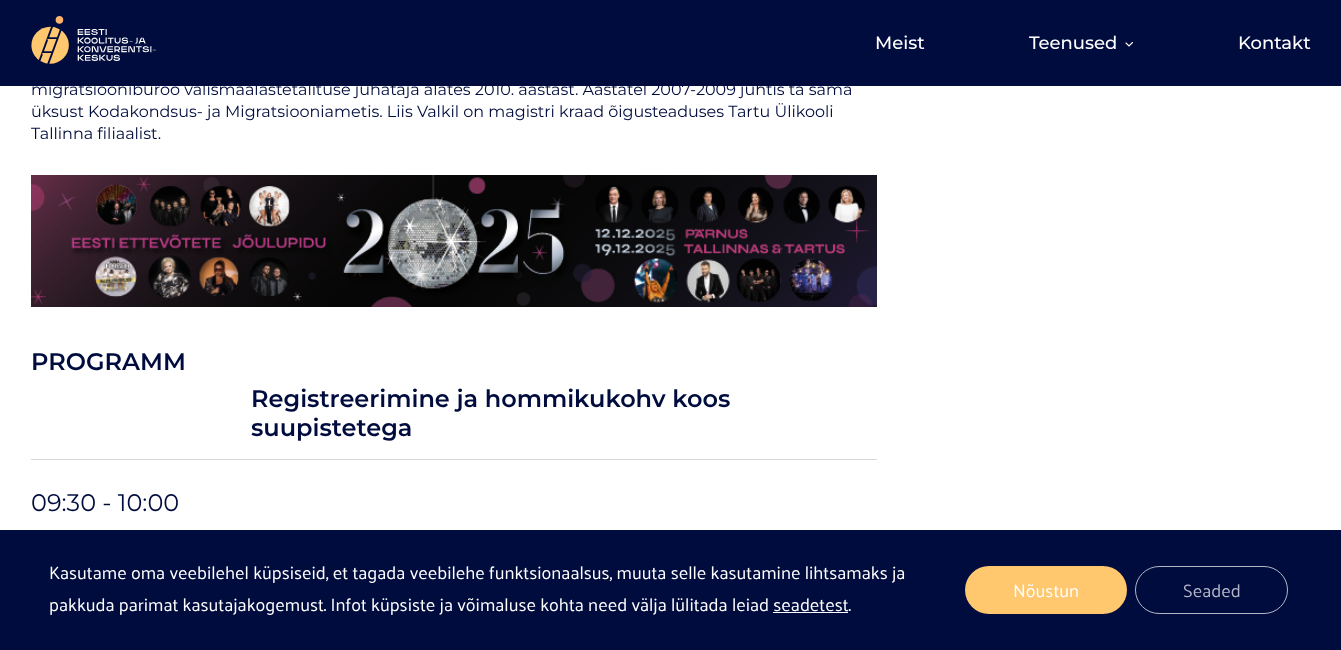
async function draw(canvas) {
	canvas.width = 1341;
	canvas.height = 650;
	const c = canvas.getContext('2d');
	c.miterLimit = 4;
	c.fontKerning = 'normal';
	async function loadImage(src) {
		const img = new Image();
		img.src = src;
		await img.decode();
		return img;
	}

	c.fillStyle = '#fff';
	c.fillRect(0, 0, 1341, 650);
	c.fillStyle = '#000c3e';
	c.fillRect(0, 0, 1341, 86);
	c.drawImage(await loadImage('img1.png'), 31, 16, 125, 48);
	c.font = '500 18px Montserrat';
	c.fillStyle = '#fff';
	c.fillText('Meist', 875, 49);
	c.fillText('Teenused', 1029, 49);
	c.beginPath();
	c.moveTo(1126, 43);
	c.lineTo(1129, 46);
	c.lineTo(1132.5, 42.5);
	c.strokeStyle = '#fff';
	c.lineWidth = 1.1;
	c.lineCap = 'round';
	c.stroke();
	c.fillText('Kontakt', 1238, 49);
	c.font = '16px Montserrat';
	c.fillStyle = '#000c3e';
	for (const [text, x, y] of [
		['migratsioonibüroo välismaalastetalituse juhataja alates 2010. aastast. Aastatel 2007-2009 juhtis ta sama', 31, 95],
		['üksust Kodakondsus- ja Migratsiooniametis. Liis Valkil on magistri kraad õigusteaduses Tartu Ülikooli', 31, 117],
		['Tallinna filiaalist.', 31, 139],
	]) {
		c.fillText(text, x, y);
	}
	c.drawImage(await loadImage('img2.png'), 31, 175, 846, 132);
	c.font = '600 24px Montserrat';
	for (const [text, x, y] of [
		['PROGRAMM', 31, 370],
		['Registreerimine ja hommikukohv koos', 251, 407],
		['suupistetega', 251, 436],
	]) {
		c.fillText(text, x, y);
	}
	c.fillStyle = '#d8d8d8';
	c.fillRect(31, 459, 846, 1);
	c.font = '24px Montserrat';
	c.fillStyle = '#000c3e';
	c.fillText('09:30 - 10:00', 31, 511);
	c.fillRect(0, 530, 1341, 120);
	c.font = '18px Palanquin';
	c.fillStyle = '#fff';
	c.fillText('Kasutame oma veebilehel küpsiseid, et tagada veebilehe funktsionaalsus, muuta selle kasutamine lihtsamaks ja', 49, 579);
	c.fillText('pakkuda parimat kasutajakogemust. Infot küpsiste ja võimaluse kohta need välja lülitada leiad seadetest.', 49, 611);
	c.fillRect(773, 612, 75, 1);
	c.fillStyle = '#ffc76e';
	c.beginPath();
	c.roundRect(965, 566, 162, 48, 24);
	c.fill();
	c.fillStyle = '#fff';
	c.fillText('Nõustun', 1013, 597);
	c.beginPath();
	c.roundRect(1135.5, 566.5, 152, 47, 23.5);
	c.strokeStyle = '#b3b6c5';
	c.lineWidth = 1;
	c.stroke();
	c.fillStyle = '#b3b6c5';
	c.fillText('Seaded', 1183, 597);
}

draw(document.querySelector('canvas'));
